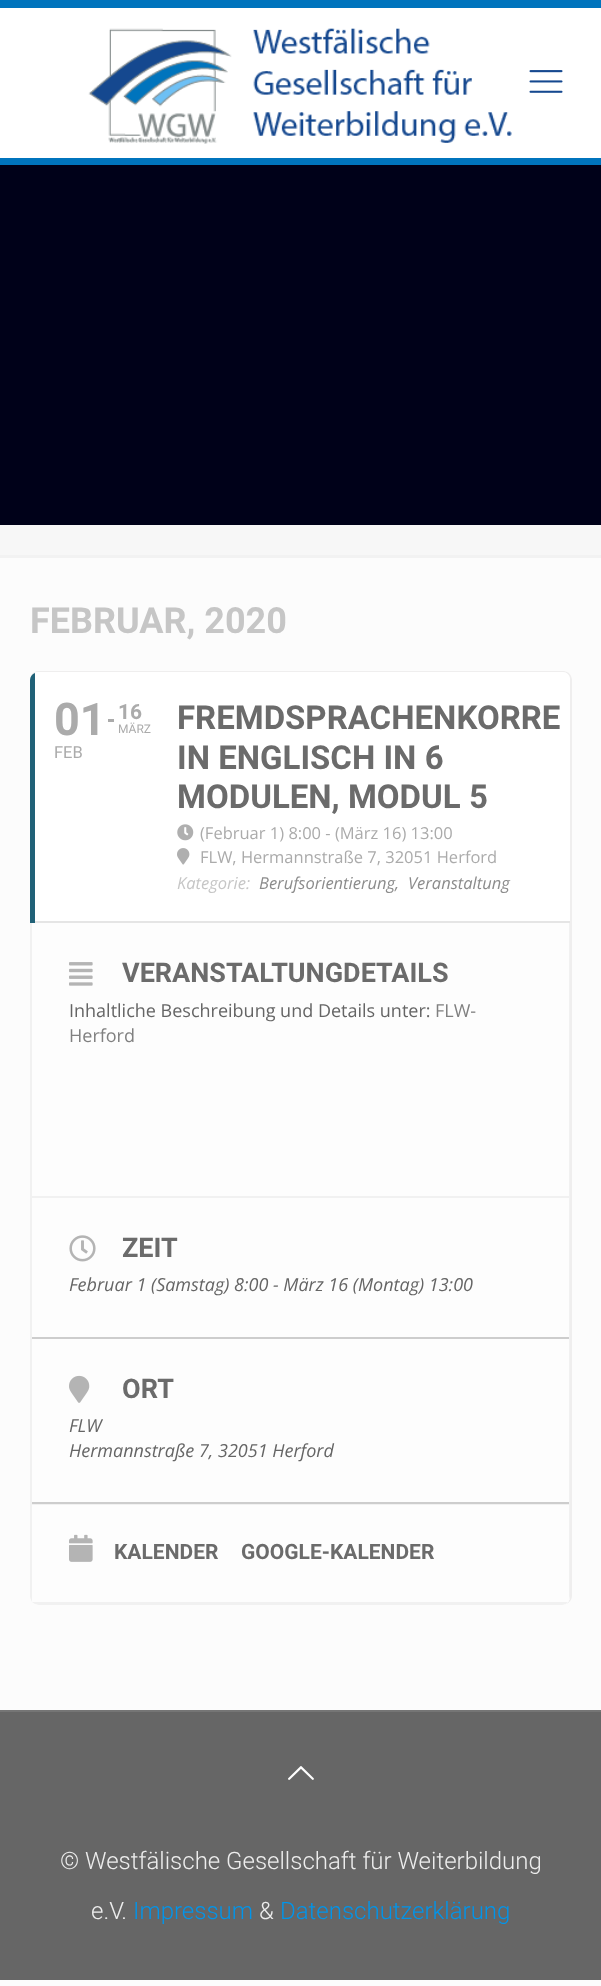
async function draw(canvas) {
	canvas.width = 601;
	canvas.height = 1986;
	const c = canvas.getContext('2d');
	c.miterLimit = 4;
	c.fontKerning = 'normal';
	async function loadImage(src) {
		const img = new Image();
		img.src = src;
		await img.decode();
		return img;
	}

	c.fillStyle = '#fcfcfc';
	c.fillRect(0, 0, 601, 1986);
	for (const [x, y, w, h, color] of [
		[0, 165, 601, 360, '#000119'],
		[0, 8, 601, 150, '#fff'],
		[0, 0, 601, 8, '#0074bd'],
		[0, 158, 601, 7, '#0074bd'],
	]) {
		c.fillStyle = color;
		c.fillRect(x, y, w, h);
	}
	c.drawImage(await loadImage('img1.png'), 88, 28, 424, 116);
	c.drawImage(await loadImage('img2.png'), 529, 70, 34, 23);
	c.fillStyle = '#f7f7f7';
	c.fillRect(0, 525, 601, 30);
	c.fillStyle = '#f2f2f2';
	c.fillRect(0, 555, 601, 3);
	c.font = 'bold 36px Roboto';
	c.fillStyle = '#c6c6c6';
	c.fillText('FEBRUAR, 2020', 30, 633);
	c.fillStyle = '#efeeee';
	c.beginPath();
	c.moveTo(39, 672);
	c.lineTo(562, 672);
	c.bezierCurveTo(567, 672, 570, 675, 570, 680);
	c.lineTo(570, 1596);
	c.bezierCurveTo(570, 1601, 567, 1605, 562, 1605);
	c.bezierCurveTo(567, 1605, 572, 1601, 572, 1596);
	c.lineTo(572, 680);
	c.bezierCurveTo(572, 677, 570, 673, 567, 672);
	c.lineTo(564, 671);
	c.lineTo(38, 671);
	c.bezierCurveTo(36, 671, 34, 672, 33, 673);
	c.bezierCurveTo(31, 675, 30, 677, 30, 680);
	c.bezierCurveTo(30, 675, 34, 672, 39, 672);
	c.closePath();
	c.fill();
	c.fillStyle = '#fff';
	c.beginPath();
	c.moveTo(39, 672);
	c.bezierCurveTo(34, 672, 30, 675, 30, 680);
	c.lineTo(30, 923);
	c.lineTo(570, 923);
	c.lineTo(570, 680);
	c.bezierCurveTo(570, 675, 567, 672, 562, 672);
	c.closePath();
	c.fill();
	c.fillStyle = '#206177';
	c.beginPath();
	c.moveTo(35, 673);
	c.bezierCurveTo(32, 674, 30, 677, 30, 680);
	c.lineTo(30, 923);
	c.lineTo(35, 923);
	c.closePath();
	c.fill();
	c.font = 'bold 45px Roboto';
	c.fillStyle = '#ababab';
	c.fillText('01', 54, 735);
	c.font = '16.5px Roboto';
	c.fillText('FEB', 54, 758);
	c.font = 'bold 21px Roboto';
	c.fillText('16', 118, 719);
	c.fillRect(108, 719, 6, 3);
	c.font = '12px Roboto';
	c.fillText('MÄRZ', 118, 733);
	c.font = 'bold 33px Roboto';
	c.fillStyle = '#6b6b6b';
	for (const [text, x, y] of [
		['FREMDSPRACHENKORRE', 177, 729],
		['IN ENGLISCH IN 6', 177, 769],
		['MODULEN, MODUL 5', 177, 808],
	]) {
		c.fillText(text, x, y);
	}
	c.drawImage(await loadImage('img3.png'), 177, 824, 17, 17);
	c.font = '16.5px Open Sans';
	c.fillStyle = '#ababab';
	c.fillText('(Februar 1) 8:00 - (März 16) 13:00', 200, 839);
	c.drawImage(await loadImage('img4.png'), 177, 848, 13, 17);
	c.fillText('FLW, Hermannstraße 7, 32051 Herford', 200, 863);
	c.font = 'italic 16.5px Open Sans';
	c.fillStyle = '#c6c6c6';
	c.fillText('Kategorie:', 177, 889);
	c.fillStyle = '#8c8c8c';
	c.fillText('Berufsorientierung,', 259, 889);
	c.fillText('Veranstaltung', 408, 889);
	c.fillStyle = '#e5e5e5';
	c.fillRect(35, 921, 535, 2);
	c.fillStyle = '#fdfdfd';
	c.beginPath();
	c.moveTo(30, 923);
	c.lineTo(30, 1596);
	c.bezierCurveTo(30, 1601, 34, 1605, 39, 1605);
	c.lineTo(562, 1605);
	c.bezierCurveTo(567, 1605, 570, 1601, 570, 1596);
	c.lineTo(570, 923);
	c.closePath();
	c.fill();
	c.fillStyle = '#f1f1f1';
	c.beginPath();
	c.moveTo(569, 923);
	c.lineTo(570, 923);
	c.lineTo(570, 1596);
	c.lineTo(569, 1600);
	c.closePath();
	c.fill();
	c.beginPath();
	c.moveTo(39, 1605);
	c.lineTo(562, 1605);
	c.lineTo(566, 1604);
	c.lineTo(35, 1604);
	c.closePath();
	c.fill();
	c.beginPath();
	c.moveTo(30, 923);
	c.lineTo(30, 1596);
	c.bezierCurveTo(30, 1598, 31, 1600, 32, 1602);
	c.lineTo(32, 923);
	c.closePath();
	c.fill();
	c.fillRect(32, 1196, 537, 2);
	c.drawImage(await loadImage('img5.png'), 69, 962, 24, 24);
	c.font = 'bold 27px Roboto';
	c.fillStyle = '#6b6b6b';
	c.fillText('VERANSTALTUNGDETAILS', 122, 982);
	c.font = '18px Open Sans';
	c.fillStyle = '#656565';
	c.fillText('Inhaltliche Beschreibung und Details unter:', 69, 1017);
	c.fillStyle = '#808080';
	c.fillText('FLW-', 435, 1017);
	c.fillText('Herford', 69, 1042);
	c.fillStyle = '#f1f1f1';
	c.fillRect(32, 1504, 537, 1);
	c.fillStyle = '#cdcdcd';
	c.fillRect(32, 1337, 537, 2);
	c.drawImage(await loadImage('img6.png'), 69, 1235, 27, 27);
	c.font = 'bold 27px Roboto';
	c.fillStyle = '#6b6b6b';
	c.fillText('ZEIT', 122, 1257);
	c.font = 'italic 18px Open Sans';
	c.fillStyle = '#656565';
	c.fillText('Februar 1 (Samstag) 8:00 - März 16 (Montag) 13:00', 69, 1291);
	c.fillStyle = '#cdcdcd';
	c.fillRect(32, 1502, 537, 2);
	c.drawImage(await loadImage('img7.png'), 69, 1375, 21, 28);
	c.font = 'bold 27px Roboto';
	c.fillStyle = '#6b6b6b';
	c.fillText('ORT', 122, 1398);
	c.font = 'italic 18px Open Sans';
	c.fillStyle = '#656565';
	c.fillText('FLW', 69, 1432);
	c.fillText('Hermannstraße 7, 32051 Herford', 69, 1457);
	c.fillStyle = '#f1f1f1';
	c.beginPath();
	c.moveTo(35, 1604);
	c.lineTo(32, 1602);
	c.lineTo(568, 1602);
	c.lineTo(566, 1604);
	c.closePath();
	c.fill();
	c.drawImage(await loadImage('img8.png'), 69, 1534, 24, 28);
	c.font = 'bold 21px Roboto';
	c.fillStyle = '#6b6b6b';
	c.fillText('KALENDER', 114, 1559);
	c.fillText('GOOGLE-KALENDER', 241, 1559);
	c.fillStyle = '#666';
	c.fillRect(0, 1712, 601, 268);
	c.fillStyle = '#757575';
	c.fillRect(0, 1710, 601, 2);
	c.drawImage(await loadImage('img9.png'), 288, 1766, 26, 14);
	c.font = '300 24px Roboto';
	c.fillStyle = '#ededed';
	c.fillText('© Westfälische Gesellschaft für Weiterbildung', 60, 1869);
	c.fillText('e.V.', 91, 1919);
	c.fillStyle = '#0095eb';
	c.fillText('Impressum', 133, 1919);
	c.fillStyle = '#ededed';
	c.fillText('&', 259, 1919);
	c.fillStyle = '#0095eb';
	c.fillText('Datenschutzerklärung', 280, 1919);
}

draw(document.querySelector('canvas'));
